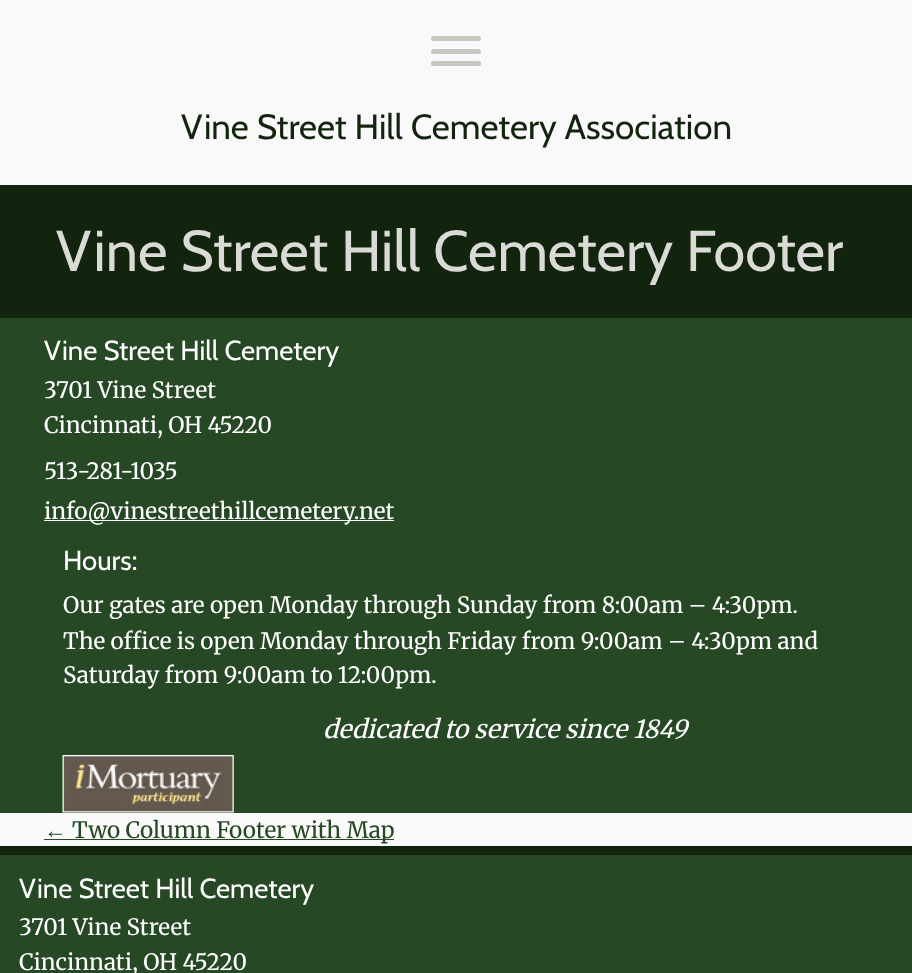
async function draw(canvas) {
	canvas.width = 912;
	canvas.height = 973;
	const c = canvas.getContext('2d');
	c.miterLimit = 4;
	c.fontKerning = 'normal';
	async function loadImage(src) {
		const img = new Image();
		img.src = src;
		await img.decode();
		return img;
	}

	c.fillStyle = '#f9f9f9';
	c.fillRect(0, 0, 912, 973);
	c.fillStyle = '#c5c7c1';
	c.beginPath();
	c.roundRect(431, 61, 50, 5, 2.5);
	c.fill();
	c.beginPath();
	c.roundRect(431, 36, 50, 5, 2.5);
	c.fill();
	c.beginPath();
	c.roundRect(431, 49, 50, 5, 2.5);
	c.fill();
	c.font = '35px Cabin';
	c.fillStyle = '#13240e';
	c.fillText('Vine Street Hill Cemetery Association', 181, 139);
	c.fillRect(0, 185, 912, 133);
	c.font = '57.5px Cabin';
	c.fillStyle = '#dadad6';
	c.fillText('Vine Street Hill Cemetery Footer', 56, 271);
	c.fillStyle = '#274825';
	c.fillRect(0, 318, 912, 495);
	c.font = '27.5px Cabin';
	c.fillStyle = '#fff';
	c.fillText('Vine Street Hill Cemetery', 44, 360);
	c.font = '300 22.5px Merriweather';
	for (const [text, x, y] of [
		['3701 Vine Street', 44, 398],
		['Cincinnati, OH 45220', 44, 433],
		['513-281-1035', 44, 479],
	]) {
		c.fillText(text, x, y);
	}
	c.fillRect(44, 520, 350, 1);
	c.fillText('info@vinestreethillcemetery.net', 44, 519);
	c.font = '27.5px Cabin';
	c.fillText('Hours:', 63, 570);
	c.font = '300 22.5px Merriweather';
	for (const [text, x, y] of [
		['Our gates are open Monday through Sunday from 8:00am – 4:30pm.', 63, 613],
		['The office is open Monday through Friday from 9:00am – 4:30pm and', 63, 649],
		['Saturday from 9:00am to 12:00pm.', 63, 683],
	]) {
		c.fillText(text, x, y);
	}
	c.font = 'italic 300 25px Merriweather';
	c.fillText('dedicated to service since 1849', 323, 738);
	c.drawImage(await loadImage('img1.png'), 62, 755, 172, 58);
	c.font = '22.5px Liberation Serif';
	c.fillStyle = '#274825';
	c.fillText('←', 44, 838);
	c.fillRect(44, 839, 350, 1);
	c.font = '300 22.5px Merriweather';
	c.fillText('Two Column Footer with Map', 72, 838);
	c.fillStyle = '#13240e';
	c.fillRect(0, 846, 912, 9);
	c.fillStyle = '#274825';
	c.fillRect(0, 855, 912, 118);
	c.font = '27.5px Cabin';
	c.fillStyle = '#fff';
	c.fillText('Vine Street Hill Cemetery', 19, 898);
	c.font = '300 22.5px Merriweather';
	c.fillText('3701 Vine Street', 19, 935);
	c.fillText('Cincinnati, OH 45220', 19, 970);
}

draw(document.querySelector('canvas'));
